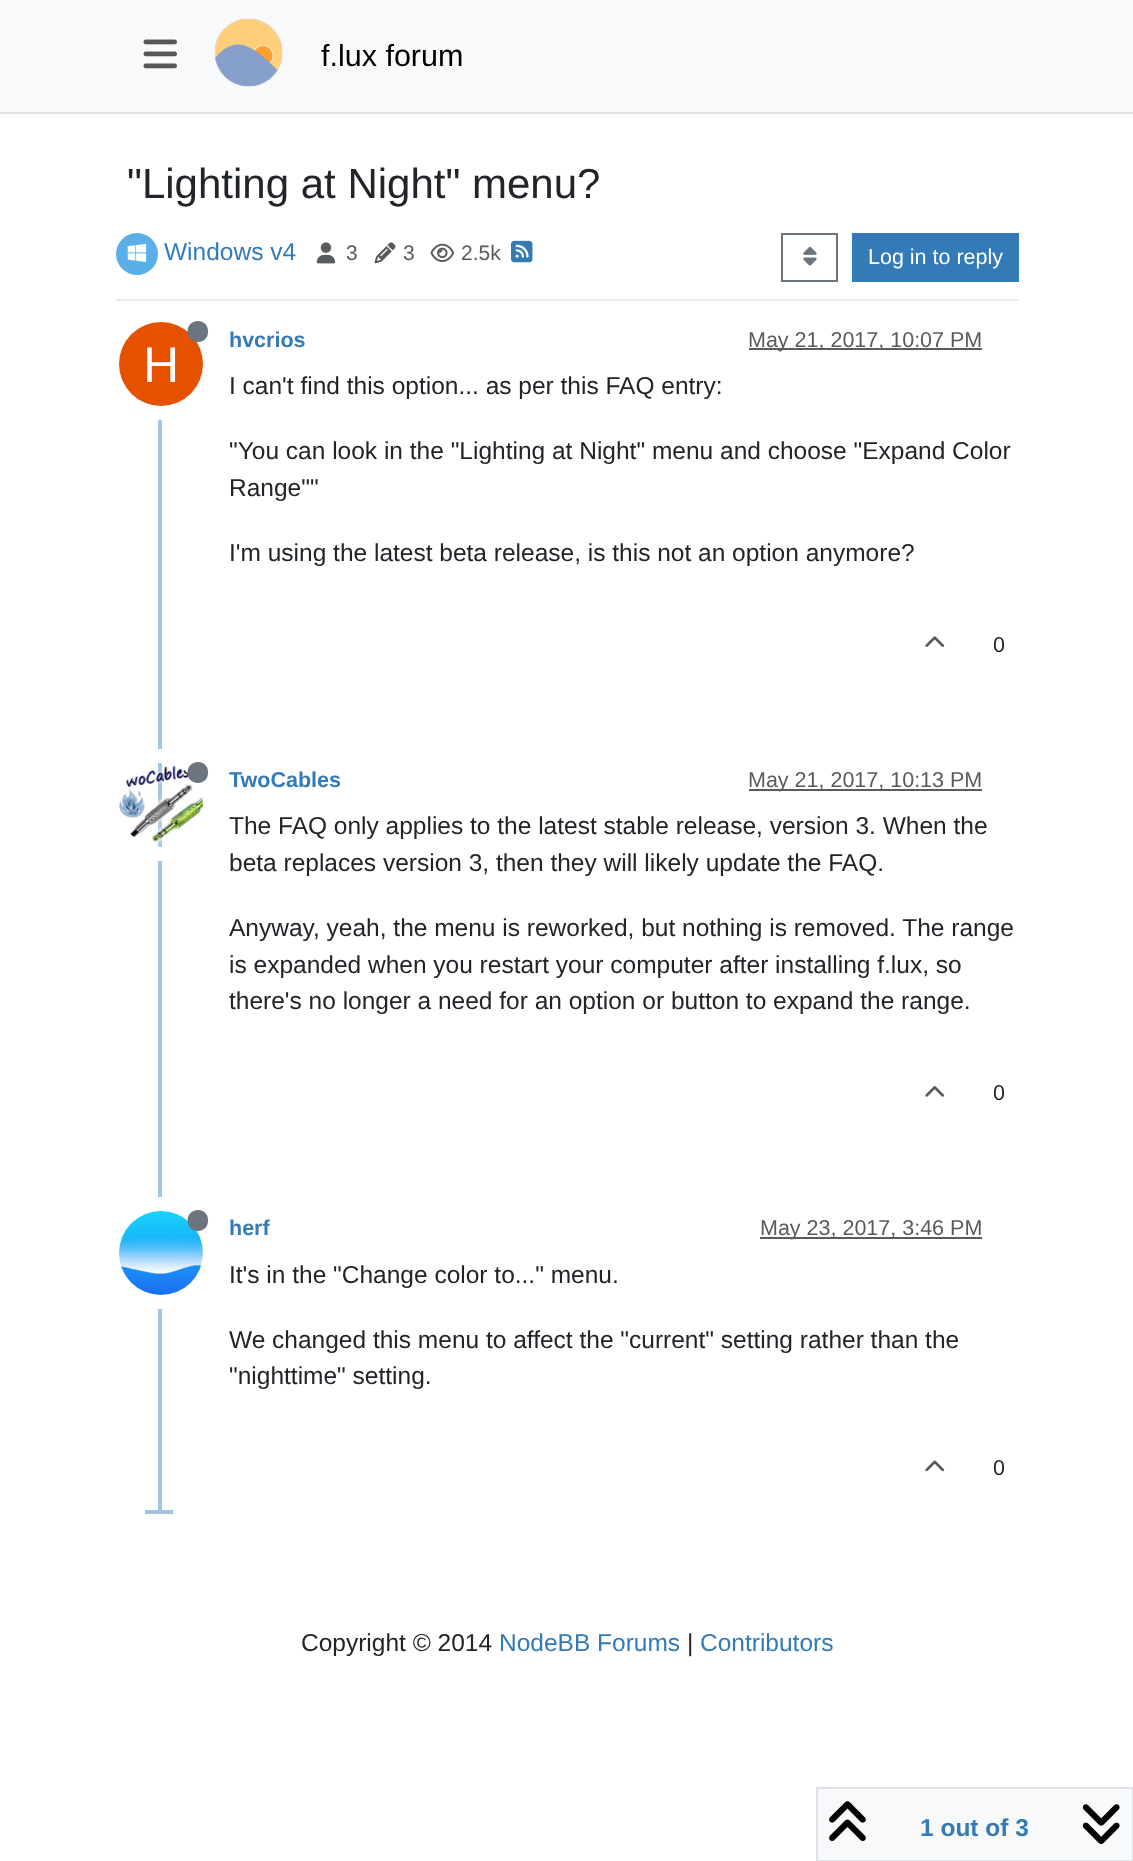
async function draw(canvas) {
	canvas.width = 1133;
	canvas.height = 1861;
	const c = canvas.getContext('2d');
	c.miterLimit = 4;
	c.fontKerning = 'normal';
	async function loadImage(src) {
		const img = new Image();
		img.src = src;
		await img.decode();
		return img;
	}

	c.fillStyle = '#fff';
	c.fillRect(0, 0, 1133, 1861);
	c.fillStyle = '#f8f9fa';
	c.fillRect(0, 0, 1133, 112);
	c.fillStyle = '#dee2e6';
	c.fillRect(0, 112, 1133, 2);
	c.drawImage(await loadImage('img1.png'), 143, 39, 34, 30);
	c.drawImage(await loadImage('img2.png'), 214, 18, 69, 69);
	c.font = '30.5px Liberation Sans';
	c.fillStyle = '#000';
	c.fillText('f.lux forum', 321, 66);
	c.font = '42px Liberation Sans';
	c.fillStyle = '#212529';
	c.fillText('"Lighting at Night" menu?', 127, 198);
	c.fillStyle = '#e9ecef';
	c.fillRect(116, 299, 903, 2);
	c.fillStyle = '#5aafe8';
	c.beginPath();
	c.arc(137, 254, 21, 0, 2 * Math.PI);
	c.fill();
	c.drawImage(await loadImage('img3.png'), 127, 243, 20, 19);
	c.font = '24.5px Liberation Sans';
	c.fillStyle = '#337ab7';
	c.fillText('Windows v4', 164, 260);
	c.drawImage(await loadImage('img4.png'), 316, 242, 20, 22);
	c.font = '21px Liberation Sans';
	c.fillStyle = '#585b5e';
	c.fillText('3', 346, 260);
	c.drawImage(await loadImage('img5.png'), 374, 242, 22, 22);
	c.fillText('3', 403, 260);
	c.drawImage(await loadImage('img6.png'), 430, 243, 25, 20);
	c.fillText('2.5k', 461, 260);
	c.drawImage(await loadImage('img7.png'), 511, 240, 22, 23);
	c.strokeStyle = '#6c757d';
	c.lineWidth = 2;
	c.strokeRect(782, 234, 55, 47);
	c.drawImage(await loadImage('img8.png'), 803, 246, 14, 20);
	c.fillStyle = '#337ab7';
	c.fillRect(852, 233, 167, 49);
	c.font = '21.5px Liberation Sans';
	c.fillStyle = '#fff';
	c.fillText('Log in to reply', 868, 264);
	c.fillStyle = '#a0c4e4';
	c.fillRect(158, 319, 4, 1195);
	c.font = 'bold 21.5px Liberation Sans';
	c.fillStyle = '#337ab7';
	c.fillText('hvcrios', 229, 347);
	c.fillStyle = '#595c5f';
	c.fillRect(749, 348, 233, 2);
	c.font = '21.5px Liberation Sans';
	c.fillStyle = '#585b5e';
	c.fillText('May 21, 2017, 10:07 PM', 748, 347);
	c.beginPath();
	c.arc(161, 364, 49, 0, 2 * Math.PI);
	c.strokeStyle = '#fff';
	c.lineWidth = 14;
	c.stroke();
	c.fillStyle = '#e65100';
	c.beginPath();
	c.arc(161, 364, 42, 0, 2 * Math.PI);
	c.fill();
	c.fillStyle = '#6c757d';
	c.beginPath();
	c.moveTo(198, 342);
	c.bezierCurveTo(211.5, 342, 211.5, 321, 198, 321);
	c.bezierCurveTo(184, 321, 184, 342, 198, 342);
	c.closePath();
	c.fill();
	c.font = '50px Liberation Sans';
	c.fillStyle = '#fff';
	c.fillText('H', 143, 382);
	c.font = '24.5px Liberation Sans';
	c.fillStyle = '#212529';
	for (const [text, x, y] of [
		['I can\'t find this option... as per this FAQ entry:', 229, 394],
		['"You can look in the "Lighting at Night" menu and choose "Expand Color', 229, 459],
		['Range""', 229, 496],
		['I\'m using the latest beta release, is this not an option anymore?', 229, 561],
	]) {
		c.fillText(text, x, y);
	}
	c.drawImage(await loadImage('img9.png'), 925, 636, 20, 11);
	c.font = '21.5px Liberation Sans';
	c.fillText('0', 993, 652);
	c.beginPath();
	c.arc(161, 805, 49, 0, 2 * Math.PI);
	c.stroke();
	c.drawImage(await loadImage('img10.png'), 119, 765, 84, 81);
	c.fillStyle = '#6c757d';
	c.beginPath();
	c.moveTo(198, 783);
	c.bezierCurveTo(211.5, 783, 211.5, 762, 198, 762);
	c.bezierCurveTo(184, 762, 184, 783, 198, 783);
	c.closePath();
	c.fill();
	c.font = 'bold 21.5px Liberation Sans';
	c.fillStyle = '#337ab7';
	c.fillText('TwoCables', 229, 787);
	c.fillStyle = '#595c5f';
	c.fillRect(749, 789, 233, 2);
	c.font = '21.5px Liberation Sans';
	c.fillStyle = '#585b5e';
	c.fillText('May 21, 2017, 10:13 PM', 748, 787);
	c.font = '24.5px Liberation Sans';
	c.fillStyle = '#212529';
	for (const [text, x, y] of [
		['The FAQ only applies to the latest stable release, version 3. When the', 229, 834],
		['beta replaces version 3, then they will likely update the FAQ.', 229, 871],
		['Anyway, yeah, the menu is reworked, but nothing is removed. The range', 229, 936],
		['is expanded when you restart your computer after installing f.lux, so', 229, 973],
		['there\'s no longer a need for an option or button to expand the range.', 229, 1009],
	]) {
		c.fillText(text, x, y);
	}
	c.drawImage(await loadImage('img11.png'), 925, 1086, 20, 11);
	c.font = '21.5px Liberation Sans';
	c.fillText('0', 993, 1100);
	c.beginPath();
	c.arc(161, 1253, 49, 0, 2 * Math.PI);
	c.stroke();
	c.drawImage(await loadImage('img12.png'), 119, 1211, 84, 84);
	c.fillStyle = '#6c757d';
	c.beginPath();
	c.moveTo(198, 1231);
	c.bezierCurveTo(211.5, 1231, 211.5, 1210, 198, 1210);
	c.bezierCurveTo(184, 1210, 184, 1231, 198, 1231);
	c.closePath();
	c.fill();
	c.font = 'bold 21.5px Liberation Sans';
	c.fillStyle = '#337ab7';
	c.fillText('herf', 229, 1235);
	c.fillStyle = '#595c5f';
	c.fillRect(760, 1237, 222, 2);
	c.font = '21.5px Liberation Sans';
	c.fillStyle = '#585b5e';
	c.fillText('May 23, 2017, 3:46 PM', 760, 1235);
	c.font = '24.5px Liberation Sans';
	c.fillStyle = '#212529';
	for (const [text, x, y] of [
		['It\'s in the "Change color to..." menu.', 229, 1283],
		['We changed this menu to affect the "current" setting rather than the', 229, 1348],
		['"nighttime" setting.', 229, 1384],
	]) {
		c.fillText(text, x, y);
	}
	c.drawImage(await loadImage('img13.png'), 925, 1460, 20, 12);
	c.font = '21.5px Liberation Sans';
	c.fillText('0', 993, 1475);
	c.fillStyle = '#a0c4e4';
	c.fillRect(145, 1510, 28, 4);
	c.fillStyle = '#f8f9fa';
	c.beginPath();
	c.rect(817, 1788, 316, 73);
	c.fill();
	c.strokeStyle = '#dee2e6';
	c.lineWidth = 2;
	c.stroke();
	c.drawImage(await loadImage('img14.png'), 829, 1801, 37, 40);
	c.font = 'bold 24.5px Liberation Sans';
	c.fillStyle = '#337ab7';
	c.fillText('1 out of 3', 920, 1836);
	c.drawImage(await loadImage('img15.png'), 1082, 1804, 38, 40);
	c.font = '24.5px Liberation Sans';
	c.fillStyle = '#212529';
	c.fillText('Copyright © 2014', 301, 1651);
	c.fillStyle = '#337ab7';
	c.fillText('NodeBB Forums', 499, 1651);
	c.fillStyle = '#212529';
	c.fillText('|', 687, 1651);
	c.fillStyle = '#337ab7';
	c.fillText('Contributors', 700, 1651);
}

draw(document.querySelector('canvas'));
